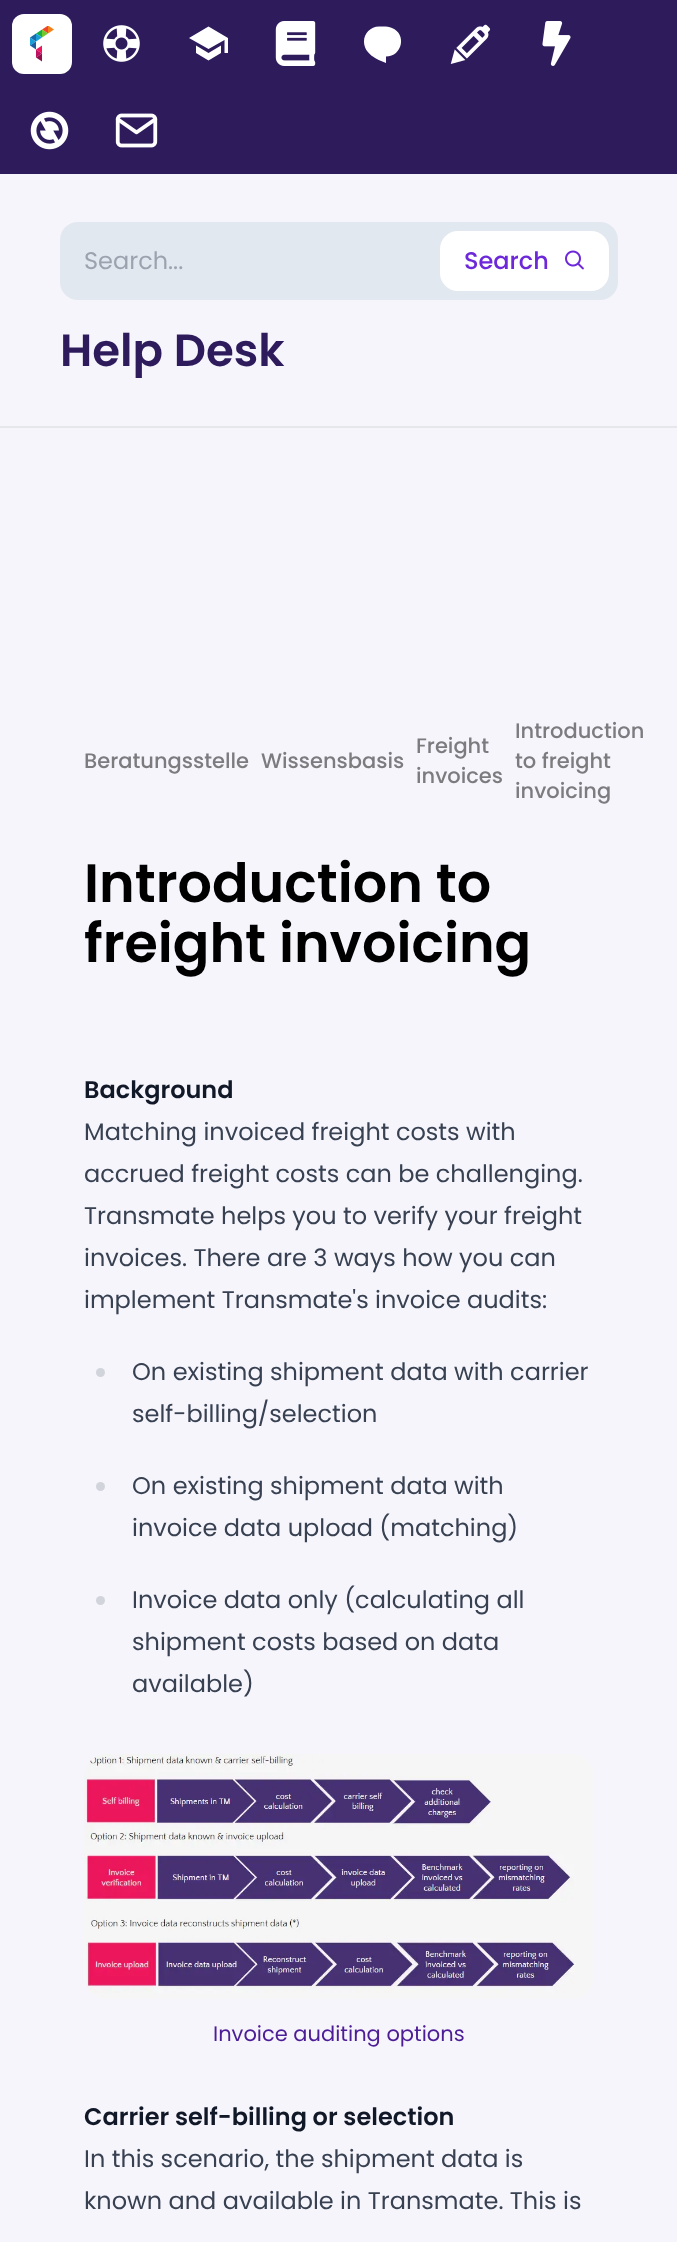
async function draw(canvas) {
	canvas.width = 677;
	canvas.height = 2242;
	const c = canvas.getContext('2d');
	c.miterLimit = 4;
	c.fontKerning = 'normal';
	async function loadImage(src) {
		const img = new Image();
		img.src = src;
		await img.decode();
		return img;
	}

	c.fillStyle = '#f7f5fc';
	c.fillRect(0, 0, 677, 2242);
	c.fillStyle = '#2d1b5c';
	c.fillRect(0, 0, 677, 174);
	c.fillStyle = '#fff';
	c.beginPath();
	c.roundRect(12, 14, 60, 60, 12);
	c.fill();
	c.drawImage(await loadImage('img1.png'), 30, 26, 24, 36);
	c.drawImage(await loadImage('img2.png'), 103, 25, 37, 37);
	c.beginPath();
	c.moveTo(196, 45.5);
	c.lineTo(196, 53);
	c.lineTo(208.5, 60.5);
	c.lineTo(221, 53);
	c.lineTo(221, 45.5);
	c.lineTo(208.5, 53);
	c.closePath();
	c.moveTo(208.5, 26.5);
	c.lineTo(189, 38);
	c.lineTo(208.5, 49);
	c.lineTo(224.5, 40);
	c.lineTo(224.5, 53);
	c.lineTo(228, 53);
	c.lineTo(228, 38);
	c.closePath();
	c.fill();
	c.drawImage(await loadImage('img3.png'), 275, 21, 41, 45);
	c.beginPath();
	c.moveTo(379, 26.5);
	c.bezierCurveTo(383, 26.5, 388, 26, 392, 28);
	c.bezierCurveTo(407, 34, 402.5, 56.5, 386, 56.5);
	c.lineTo(386, 63);
	c.bezierCurveTo(377, 59.5, 364, 54, 364, 41.5);
	c.bezierCurveTo(364, 33.5, 370.5, 26.5, 379, 26.5);
	c.closePath();
	c.fill();
	c.drawImage(await loadImage('img4.png'), 450, 24, 41, 40);
	c.drawImage(await loadImage('img5.png'), 542, 21, 29, 45);
	c.drawImage(await loadImage('img6.png'), 30, 111, 39, 39);
	c.drawImage(await loadImage('img7.png'), 115, 113, 43, 35);
	c.fillStyle = '#e5e7eb';
	c.fillRect(0, 426, 677, 2);
	c.fillStyle = '#e2e8f0';
	c.beginPath();
	c.roundRect(60, 222, 558, 78, 18);
	c.fill();
	c.font = '24px Poppins';
	c.fillStyle = '#9ca3af';
	c.fillText('Search...', 84, 269);
	c.fillStyle = '#fff';
	c.beginPath();
	c.roundRect(440, 231, 169, 60, 18);
	c.fill();
	c.font = '500 24px Poppins';
	c.fillStyle = '#6d28d9';
	c.fillText('Search', 464, 269);
	c.drawImage(await loadImage('img8.png'), 565, 250, 19, 20);
	c.font = '600 45px Poppins';
	c.fillStyle = '#2d1b5c';
	c.fillText('Help Desk', 60, 366);
	c.font = '500 21px Poppins';
	c.fillStyle = '#7c7b7e';
	for (const [text, x, y] of [
		['Introduction', 515, 738],
		['Beratungsstelle', 84, 768],
		['Wissensbasis', 261, 768],
		['Freight', 416, 753],
		['invoices', 416, 783],
		['to freight', 515, 768],
		['invoicing', 515, 798],
	]) {
		c.fillText(text, x, y);
	}
	c.font = '600 54px Poppins';
	c.fillStyle = '#000';
	c.fillText('Introduction to', 84, 902);
	c.fillText('freight invoicing', 84, 962);
	c.font = '600 24px Poppins';
	c.fillStyle = '#111827';
	c.fillText('Background', 84, 1098);
	c.font = '24px Poppins';
	c.fillStyle = '#374151';
	for (const [text, x, y] of [
		['Matching invoiced freight costs with', 84, 1140],
		['accrued freight costs can be challenging.', 84, 1182],
		['Transmate helps you to verify your freight', 84, 1224],
		['invoices. There are 3 ways how you can', 84, 1266],
		['implement Transmate\'s invoice audits:', 84, 1308],
	]) {
		c.fillText(text, x, y);
	}
	c.fillStyle = '#d1d5db';
	c.beginPath();
	c.arc(100.5, 1372.5, 4.5, 0, 2 * Math.PI);
	c.fill();
	c.fillStyle = '#374151';
	c.fillText('On existing shipment data with carrier', 132, 1380);
	c.fillText('self-billing/selection', 132, 1422);
	c.fillStyle = '#d1d5db';
	c.beginPath();
	c.arc(100.5, 1486.5, 4.5, 0, 2 * Math.PI);
	c.fill();
	c.fillStyle = '#374151';
	c.fillText('On existing shipment data with', 132, 1494);
	c.fillText('invoice data upload (matching)', 132, 1536);
	c.fillStyle = '#d1d5db';
	c.beginPath();
	c.arc(100.5, 1600.5, 4.5, 0, 2 * Math.PI);
	c.fill();
	c.fillStyle = '#374151';
	for (const [text, x, y] of [
		['Invoice data only (calculating all', 132, 1608],
		['shipment costs based on data', 132, 1650],
		['available)', 132, 1692],
	]) {
		c.fillText(text, x, y);
	}
	c.drawImage(await loadImage('img9.png'), 84, 1753, 510, 246);
	c.font = '21px Poppins';
	c.fillStyle = '#4c1d95';
	c.fillText('Invoice auditing options', 213, 2041);
	c.font = '600 24px Poppins';
	c.fillStyle = '#111827';
	c.fillText('Carrier self-billing or selection', 84, 2125);
	c.font = '24px Poppins';
	c.fillStyle = '#374151';
	c.fillText('In this scenario, the shipment data is', 84, 2167);
	c.fillText('known and available in Transmate. This is', 84, 2209);
}

draw(document.querySelector('canvas'));
